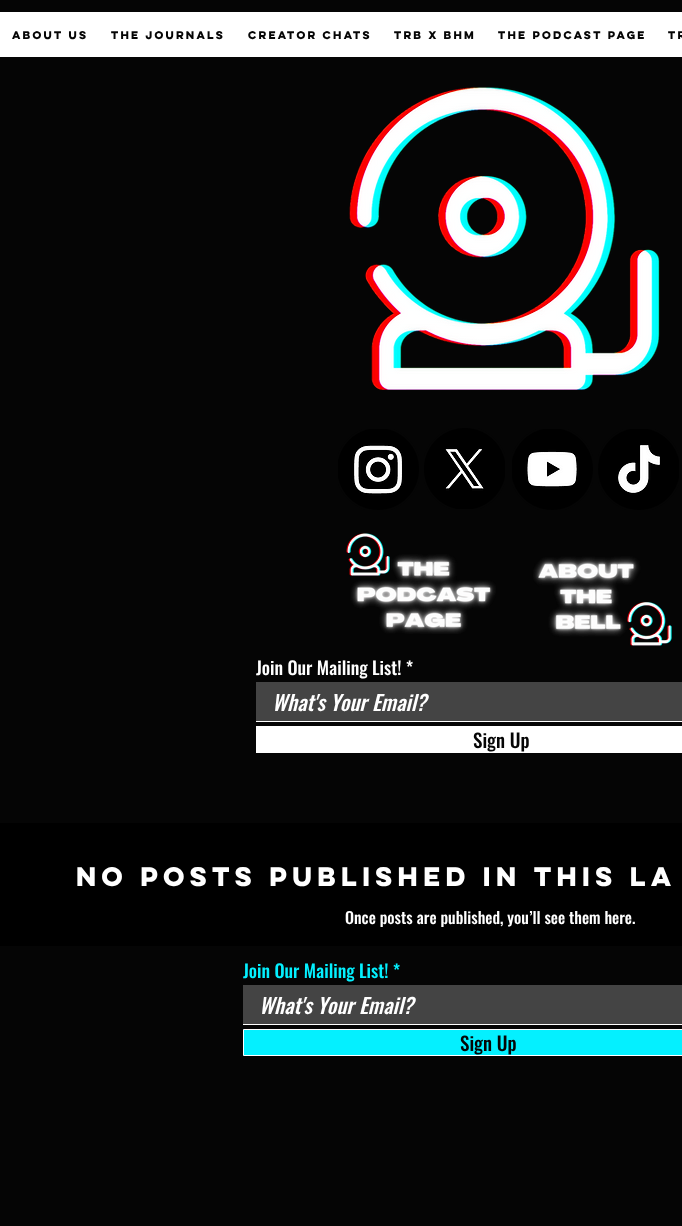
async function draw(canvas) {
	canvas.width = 682;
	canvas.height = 1226;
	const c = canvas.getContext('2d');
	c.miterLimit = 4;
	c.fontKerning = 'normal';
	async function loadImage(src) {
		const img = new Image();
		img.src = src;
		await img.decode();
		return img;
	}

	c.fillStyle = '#050505';
	c.fillRect(0, 0, 682, 1226);
	c.fillStyle = '#fff';
	c.fillRect(0, 12, 682, 45);
	c.font = 'bold 10px "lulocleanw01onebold"';
	c.fillStyle = '#050505';
	for (const [text, x, y] of [
		['About Us', 12, 39],
		['The Journals', 111, 39],
		['Creator Chats', 248, 39],
		['TRB X BHM', 394, 39],
		['The Podcast Page', 498, 39],
		['TR', 668, 39],
	]) {
		c.fillText(text, x, y);
	}
	c.drawImage(await loadImage('img1.png'), 349, 87, 311, 303);
	c.drawImage(await loadImage('img2.png'), 338, 429, 81, 81);
	c.drawImage(await loadImage('img3.png'), 424, 428, 81, 81);
	c.drawImage(await loadImage('img4.png'), 512, 429, 81, 81);
	c.drawImage(await loadImage('img5.png'), 598, 429, 81, 81);
	c.drawImage(await loadImage('img6.png'), 346, 533, 150, 101);
	c.drawImage(await loadImage('img7.png'), 533, 556, 139, 90);
	c.font = '500 18px Oswald';
	c.fillStyle = '#fff';
	c.fillText('Join Our Mailing List! *', 256, 675);
	c.fillStyle = '#444';
	c.fillRect(256, 682, 426, 39);
	c.fillStyle = '#fff';
	c.fillRect(256, 721, 426, 1);
	c.font = 'italic 500 21px Oswald';
	c.fillText('What\'s Your Email?', 272, 711);
	c.fillRect(256, 726, 426, 27);
	c.font = '500 19px Oswald';
	c.fillStyle = '#050505';
	c.fillText('Sign Up', 473, 748);
	c.fillStyle = '#000';
	c.fillRect(0, 823, 682, 123);
	c.font = 'bold 24px "lulocleanw01onebold"';
	c.fillStyle = '#fff';
	c.fillText('No posts published in this la', 76, 886);
	c.font = '500 16px Oswald';
	c.fillText('Once posts are published, you’ll see them here.', 345, 924);
	c.font = '500 18px Oswald';
	c.fillStyle = '#04f0ff';
	c.fillText('Join Our Mailing List! *', 243, 978);
	c.fillStyle = '#444';
	c.fillRect(243, 985, 439, 39);
	c.fillStyle = '#fff';
	c.fillRect(243, 1024, 439, 1);
	c.font = 'italic 500 21px Oswald';
	c.fillText('What\'s Your Email?', 259, 1014);
	c.fillStyle = '#04f0ff';
	c.beginPath();
	c.rect(243.5, 1029.5, 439, 26);
	c.fill();
	c.strokeStyle = '#fff';
	c.stroke();
	c.font = '500 19px Oswald';
	c.fillStyle = '#050505';
	c.fillText('Sign Up', 460, 1051);
}

draw(document.querySelector('canvas'));
